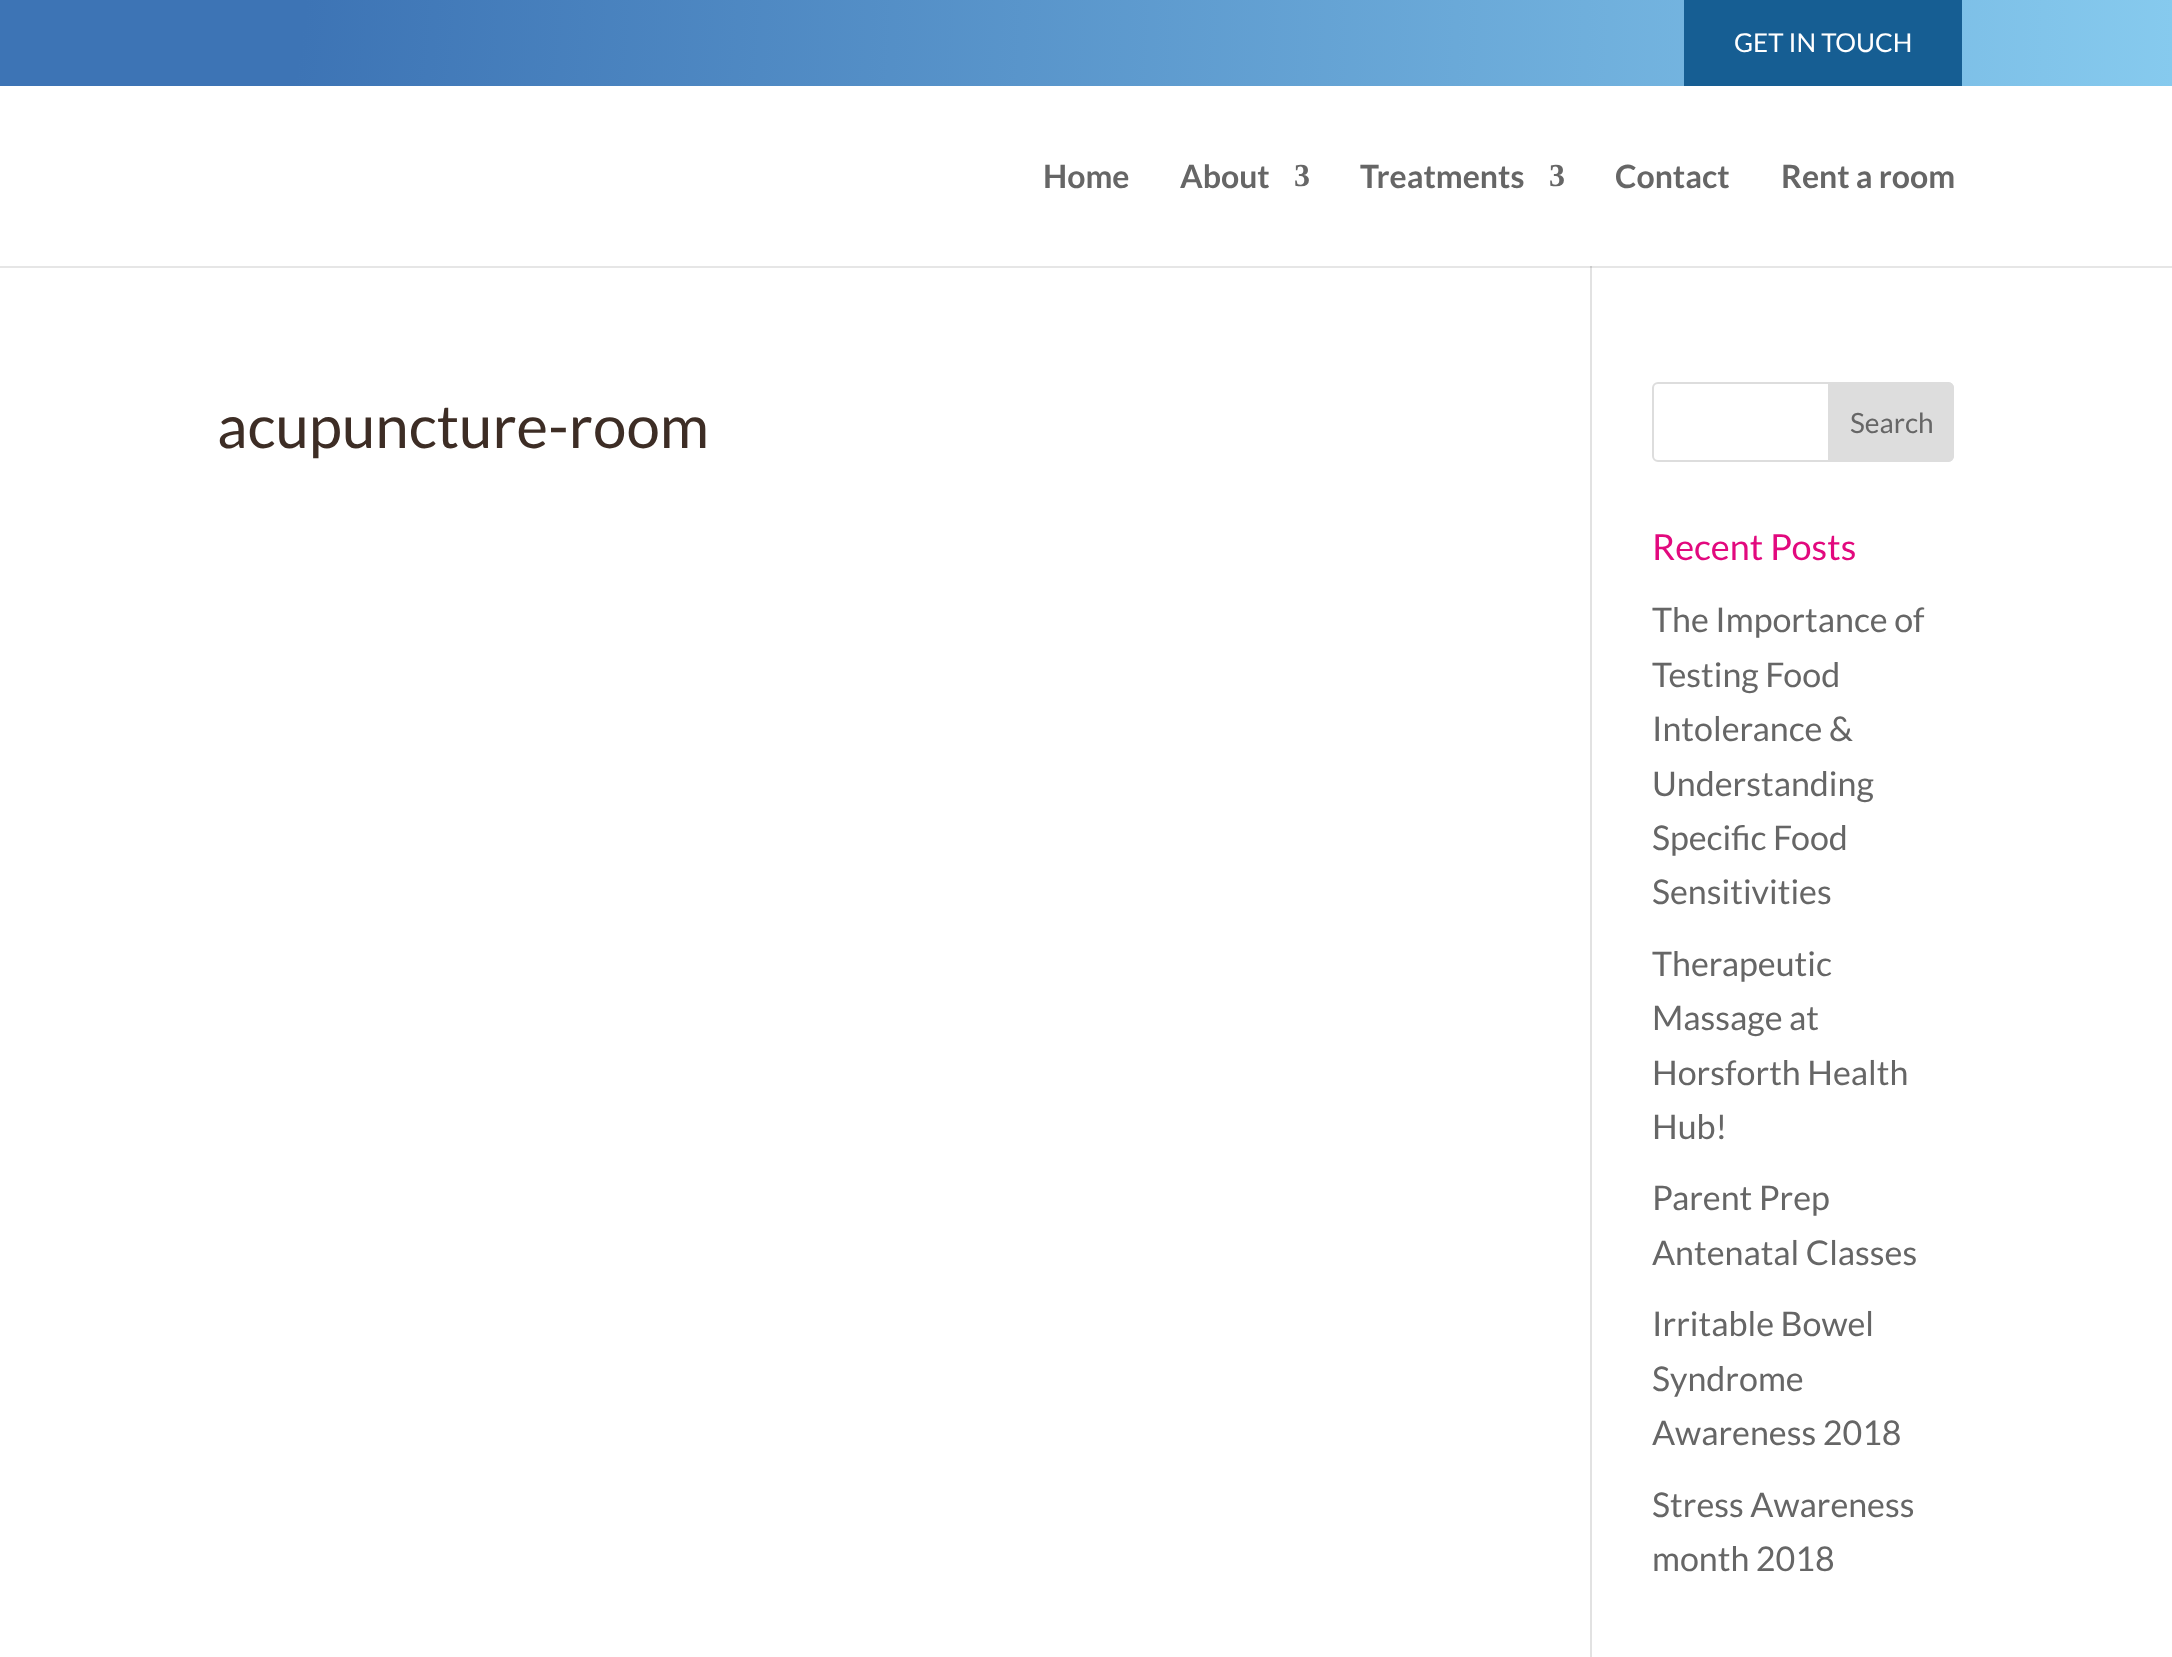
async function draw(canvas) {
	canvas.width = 2172;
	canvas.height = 1657;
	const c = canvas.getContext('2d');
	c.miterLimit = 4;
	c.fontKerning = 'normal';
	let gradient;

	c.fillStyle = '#fff';
	c.fillRect(0, 0, 2172, 1657);
	c.fillStyle = '#e6e6e6';
	c.fillRect(0, 266, 2172, 2);
	gradient = c.createRadialGradient(0, 0, 0, 0, 0, 2174);
	gradient.addColorStop(0.14, '#3d74b5');
	gradient.addColorStop(1, '#86caee');
	c.fillStyle = gradient;
	c.fillRect(0, 0, 2172, 86);
	c.fillStyle = '#165e93';
	c.fillRect(1684, 0, 278, 86);
	c.font = '26px Lato';
	c.fillStyle = '#fff';
	c.fillText('GET IN TOUCH', 1734, 52);
	c.font = 'bold 32px Lato';
	c.fillStyle = '#666';
	c.fillText('Home', 1043, 188);
	c.fillText('About', 1180, 188);
	c.font = 'bold 32px Liberation Serif';
	c.fillText('3', 1294, 186);
	c.font = 'bold 32px Lato';
	c.fillText('Treatments', 1360, 188);
	c.font = 'bold 32px Liberation Serif';
	c.fillText('3', 1549, 186);
	c.font = 'bold 32px Lato';
	c.fillText('Contact', 1615, 188);
	c.fillText('Rent a room', 1781, 188);
	c.fillStyle = '#e2e2e2';
	c.fillRect(1590, 266, 2, 1391);
	c.fillStyle = '#cbcbcb';
	c.fillRect(1590, 266, 2, 2);
	c.font = '60px Lato';
	c.fillStyle = '#3d2d25';
	c.fillText('acupuncture-room', 217, 448);
	c.beginPath();
	c.roundRect(1653, 383, 300, 78, 5);
	c.strokeStyle = '#ddd';
	c.lineWidth = 2;
	c.stroke();
	c.fillStyle = '#ddd';
	c.beginPath();
	c.roundRect(1829, 383, 124, 78, [0, 5, 5, 0]);
	c.fill();
	c.stroke();
	c.font = '28px Lato';
	c.fillStyle = '#666';
	c.fillText('Search', 1850, 433);
	c.font = '36px Lato';
	c.fillStyle = '#e2097e';
	c.fillText('Recent Posts', 1652, 560);
	c.font = '34px Lato';
	c.fillStyle = '#666';
	for (const [text, x, y] of [
		['The Importance of', 1652, 632],
		['Testing Food', 1652, 687],
		['Intolerance &', 1652, 741],
		['Understanding', 1652, 796],
		['Specific Food', 1652, 850],
		['Sensitivities', 1652, 904],
		['Therapeutic', 1652, 976],
		['Massage at', 1652, 1030],
		['Horsforth Health', 1652, 1085],
		['Hub!', 1652, 1139],
		['Parent Prep', 1652, 1210],
		['Antenatal Classes', 1652, 1265],
		['Irritable Bowel', 1652, 1336],
		['Syndrome', 1652, 1391],
		['Awareness 2018', 1652, 1445],
		['Stress Awareness', 1652, 1517],
		['month 2018', 1652, 1571],
	]) {
		c.fillText(text, x, y);
	}
}

draw(document.querySelector('canvas'));
